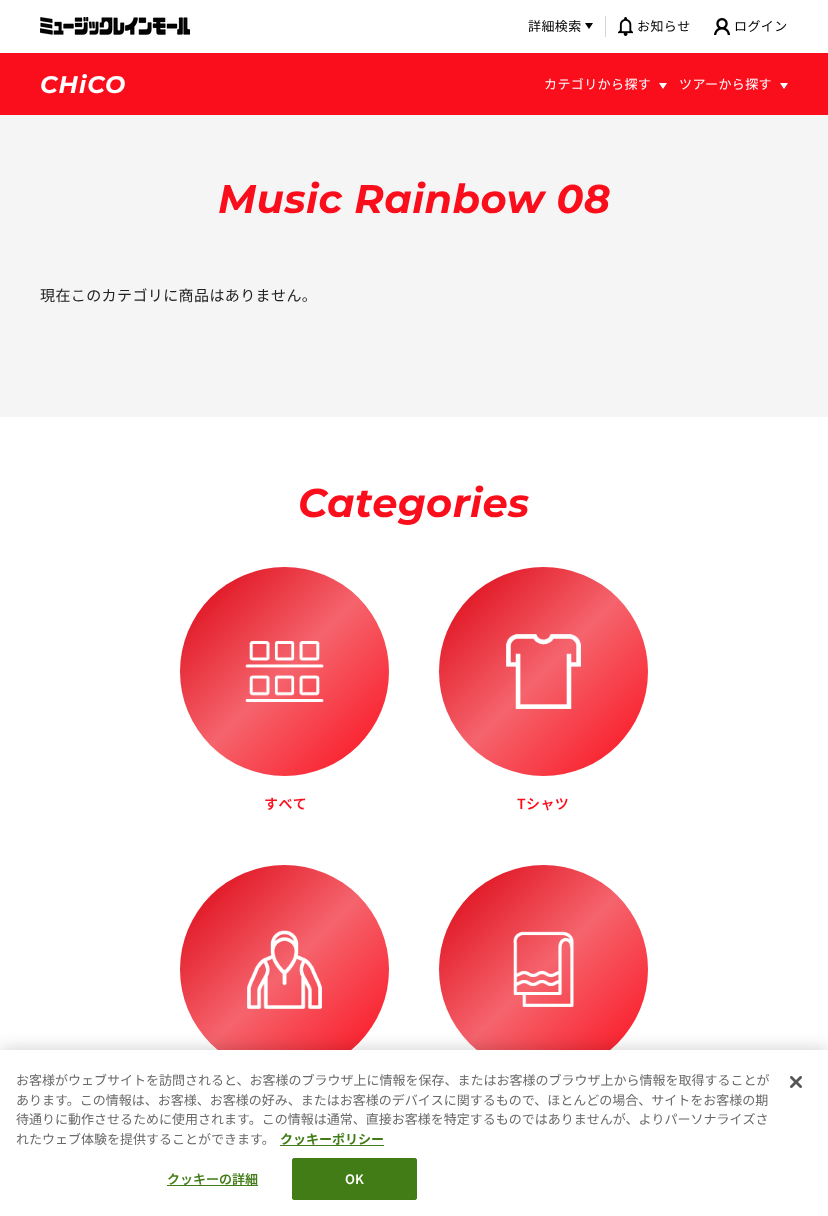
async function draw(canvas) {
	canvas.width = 828;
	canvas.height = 1216;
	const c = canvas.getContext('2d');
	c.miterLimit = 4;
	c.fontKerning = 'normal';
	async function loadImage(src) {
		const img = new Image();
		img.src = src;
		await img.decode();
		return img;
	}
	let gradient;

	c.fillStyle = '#f5f5f5';
	c.fillRect(0, 0, 828, 1216);
	c.fillStyle = '#fff';
	c.fillRect(0, 0, 828, 53);
	c.drawImage(await loadImage('img1.png'), 40, 17, 150, 18);
	c.fillStyle = '#d6d6d6';
	c.fillRect(605, 16, 1, 21);
	c.letterSpacing = '0.4px';
	c.font = '13px Noto Sans JP';
	c.fillStyle = '#000';
	c.fillText('詳細検索', 528, 31);
	c.beginPath();
	c.moveTo(585, 23);
	c.lineTo(593, 23);
	c.lineTo(589, 29);
	c.closePath();
	c.fill();
	c.drawImage(await loadImage('img2.png'), 618, 17, 15, 19);
	c.fillText('お知らせ', 637, 31);
	c.drawImage(await loadImage('img3.png'), 714, 18, 16, 17);
	c.fillText('ログイン', 734, 31);
	c.fillStyle = '#fb0e1c';
	c.fillRect(0, 53, 828, 62);
	c.letterSpacing = '1px';
	c.font = 'italic 100 24px Montserrat';
	c.fillStyle = '#fff';
	c.fillText('CHiCO', 40, 93);
	c.letterSpacing = '0.4px';
	c.font = '13px Noto Sans JP';
	c.fillText('カテゴリから探す', 544, 89);
	c.beginPath();
	c.moveTo(659, 83);
	c.lineTo(667, 83);
	c.lineTo(663, 89);
	c.closePath();
	c.fill();
	c.fillText('ツアーから探す', 679, 89);
	c.beginPath();
	c.moveTo(780, 83);
	c.lineTo(788, 83);
	c.lineTo(784, 89);
	c.closePath();
	c.fill();
	c.font = 'italic 100 40px Montserrat';
	c.fillStyle = '#fb0e1c';
	c.fillText('Music Rainbow 08', 218, 213);
	c.font = '15px Noto Sans JP';
	c.fillStyle = '#212121';
	c.fillText('現在このカテゴリに商品はありません。', 40, 301);
	c.fillStyle = '#fff';
	c.fillRect(0, 417, 828, 633);
	c.font = 'italic 100 40px Montserrat';
	c.fillStyle = '#fb0e1c';
	c.fillText('Categories', 298, 517);
	gradient = c.createLinearGradient(180, 567, 389, 776);
	gradient.addColorStop(0, '#db000f');
	gradient.addColorStop(0.5, '#f5646d');
	gradient.addColorStop(1, '#fb0e1c');
	c.fillStyle = gradient;
	c.beginPath();
	c.arc(284.5, 671.5, 104.5, 0, 2 * Math.PI);
	c.fill();
	c.drawImage(await loadImage('img4.png'), 245, 641, 79, 61);
	c.font = '600 14px Noto Sans JP';
	c.fillStyle = '#fb0e1c';
	c.fillText('すべて', 264, 809);
	gradient = c.createLinearGradient(439, 567, 648, 776);
	gradient.addColorStop(0, '#db000f');
	gradient.addColorStop(0.5, '#f5646d');
	gradient.addColorStop(1, '#fb0e1c');
	c.fillStyle = gradient;
	c.beginPath();
	c.arc(543.5, 671.5, 104.5, 0, 2 * Math.PI);
	c.fill();
	c.drawImage(await loadImage('img5.png'), 506, 634, 75, 75);
	c.fillStyle = '#fb0e1c';
	c.fillText('Tシャツ', 517, 809);
	gradient = c.createLinearGradient(180, 865, 389, 1074);
	gradient.addColorStop(0, '#db000f');
	gradient.addColorStop(0.5, '#f5646d');
	gradient.addColorStop(1, '#fb0e1c');
	c.fillStyle = gradient;
	c.beginPath();
	c.arc(284.5, 969.5, 104.5, 0, 2 * Math.PI);
	c.fill();
	c.drawImage(await loadImage('img6.png'), 247, 930, 75, 79);
	gradient = c.createLinearGradient(439, 865, 648, 1074);
	gradient.addColorStop(0, '#db000f');
	gradient.addColorStop(0.5, '#f5646d');
	gradient.addColorStop(1, '#fb0e1c');
	c.fillStyle = gradient;
	c.beginPath();
	c.arc(543.5, 969.5, 104.5, 0, 2 * Math.PI);
	c.fill();
	c.drawImage(await loadImage('img7.png'), 513, 931, 61, 76);
	c.fillStyle = '#00000033';
	c.filter = 'blur(9px)';
	c.beginPath();
	c.rect(0, 1050, 828, 166);
	c.fill();
	c.filter = 'none';
	c.fillStyle = '#fff';
	c.fillRect(0, 1050, 828, 166);
	c.letterSpacing = '0px';
	c.font = '13px Noto Sans JP';
	c.fillStyle = '#696969';
	for (const [text, x, y] of [
		['お客様がウェブサイトを訪問されると、お客様のブラウザ上に情報を保存、またはお客様のブラウザ上から情報を取得することが', 16, 1085],
		['あります。この情報は、お客様、お客様の好み、またはお客様のデバイスに関するもので、ほとんどの場合、サイトをお客様の期', 16, 1105],
		['待通りに動作させるために使用されます。この情報は通常、直接お客様を特定するものではありませんが、よりパーソナライズさ', 16, 1124],
		['れたウェブ体験を提供することができます。', 16, 1144],
	]) {
		c.fillText(text, x, y);
	}
	c.fillStyle = '#417c17';
	c.fillRect(280, 1145, 104, 1);
	c.font = 'bold 13px Noto Sans JP';
	c.fillText('クッキーポリシー', 280, 1144);
	c.fillRect(167, 1185, 91, 1);
	c.font = '600 13px Noto Sans JP';
	c.fillText('クッキーの詳細', 167, 1184);
	c.beginPath();
	c.roundRect(292.5, 1158.5, 124, 41, 1.5);
	c.fill();
	c.strokeStyle = '#417c17';
	c.stroke();
	c.fillStyle = '#fff';
	c.fillText('OK', 345, 1184);
	c.drawImage(await loadImage('img8.png'), 790, 1076, 12, 12);
}

draw(document.querySelector('canvas'));
